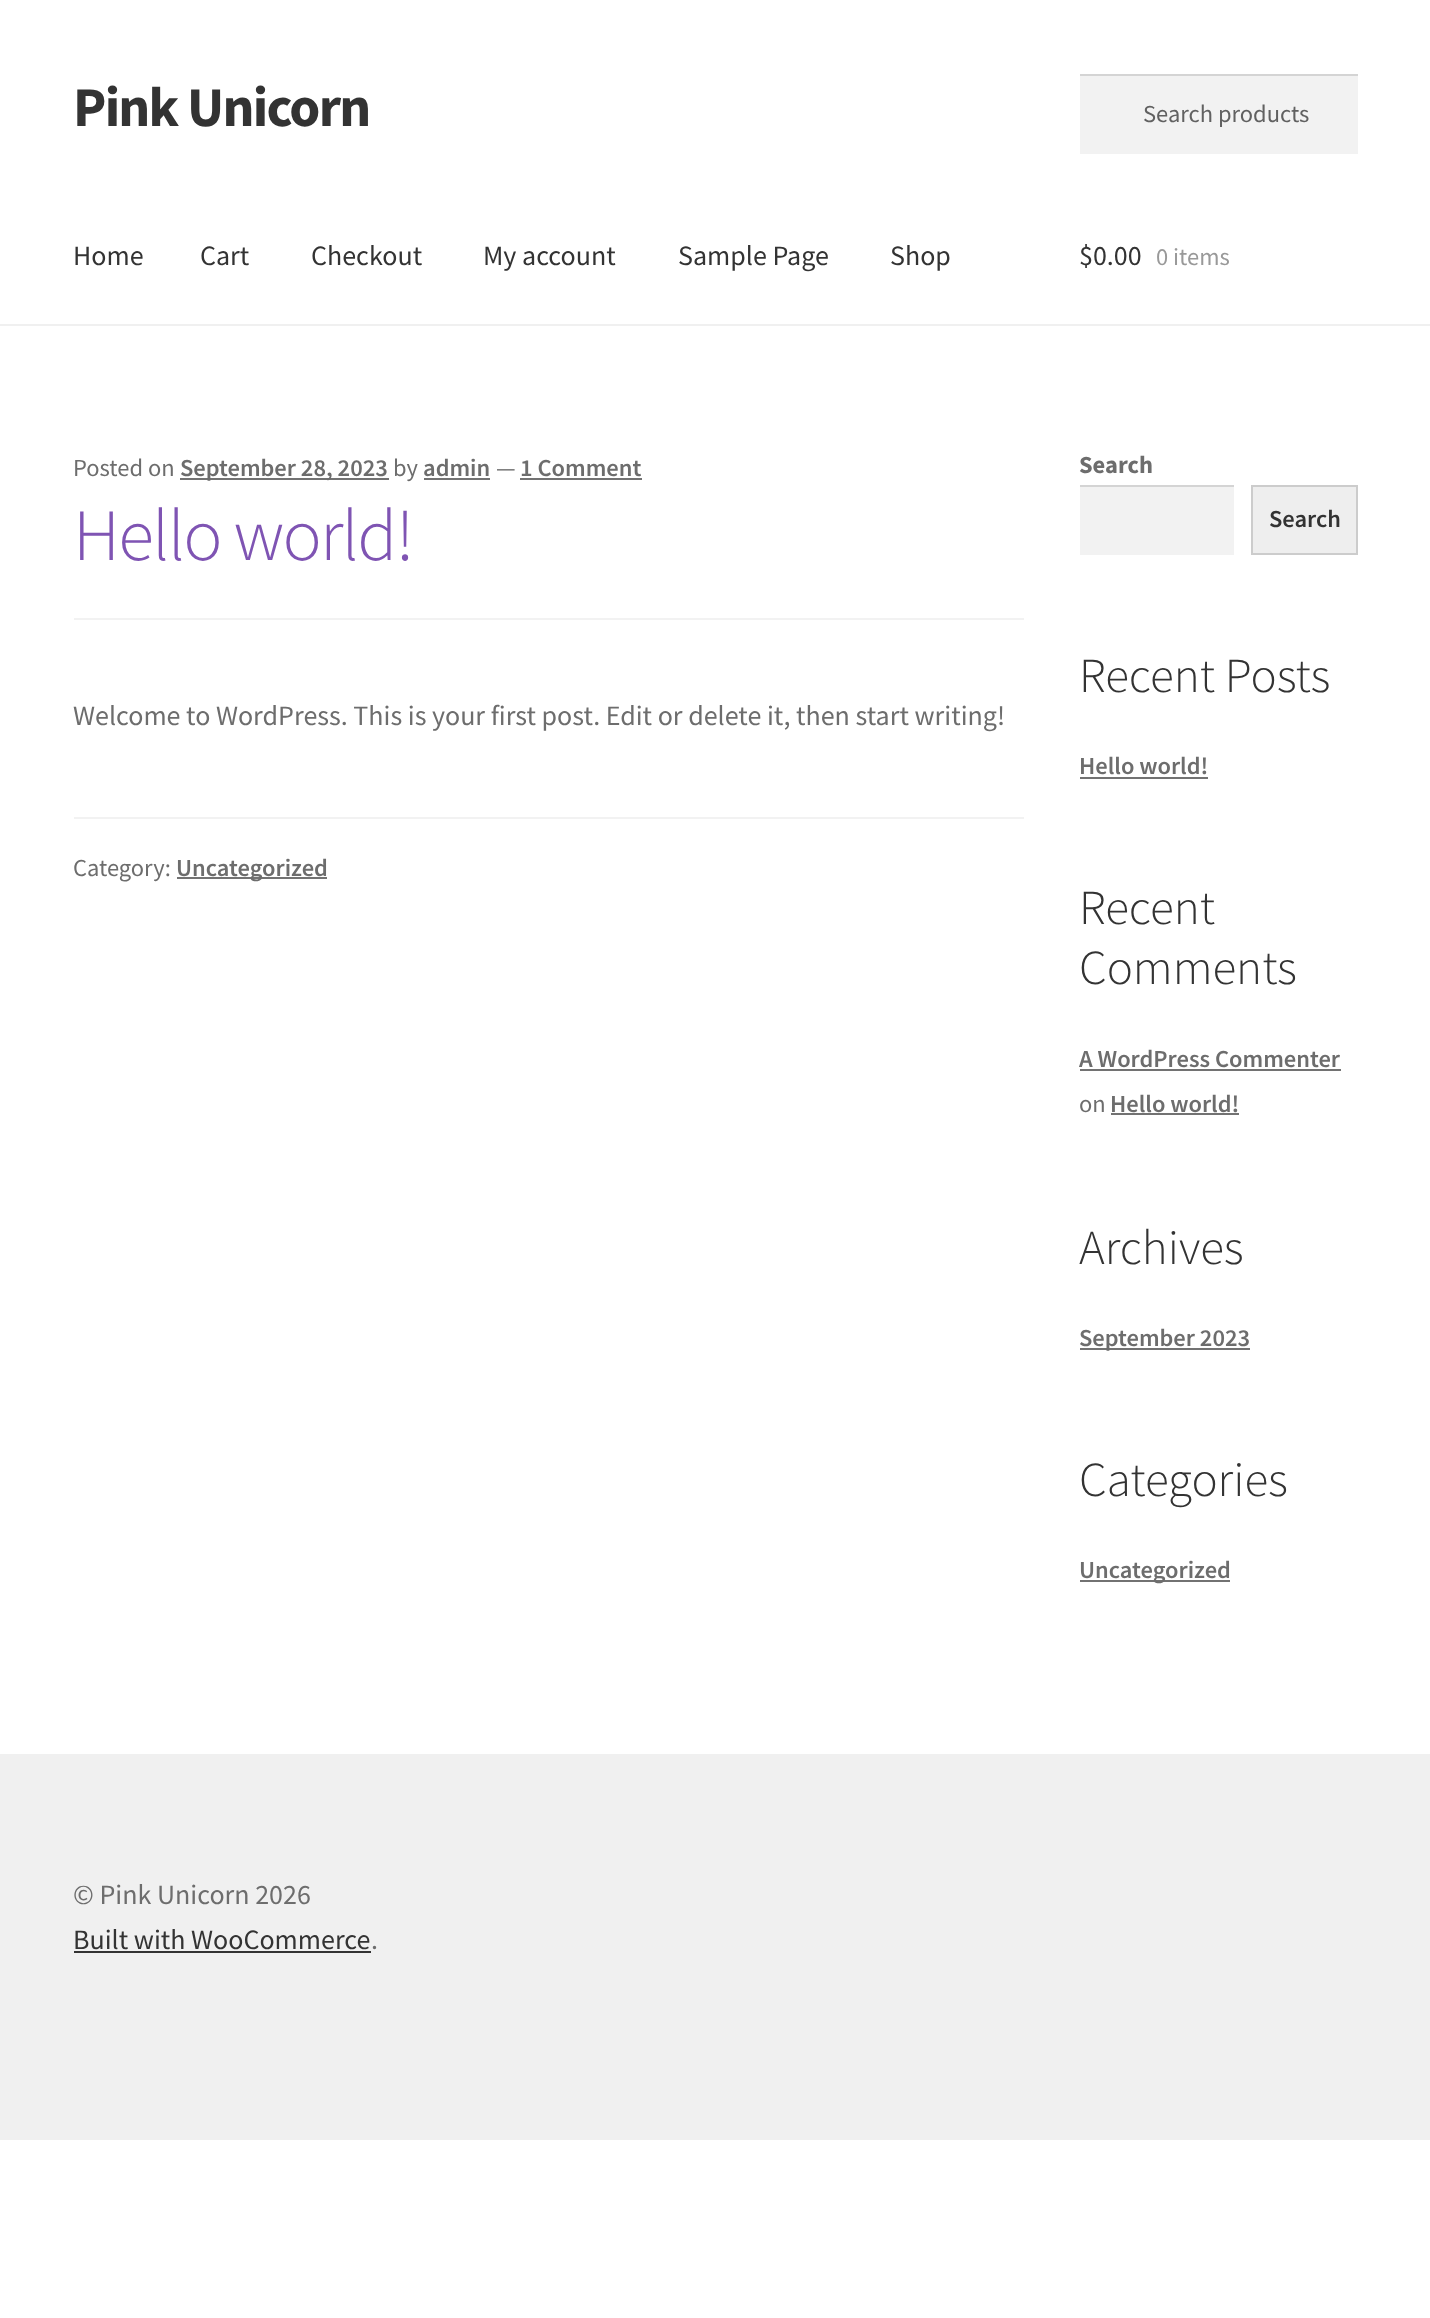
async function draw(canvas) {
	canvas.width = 1430;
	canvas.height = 2318;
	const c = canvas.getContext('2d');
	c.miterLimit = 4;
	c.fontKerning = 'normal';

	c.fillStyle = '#fff';
	c.fillRect(0, 0, 1430, 2318);
	c.fillStyle = '#f0f0f0';
	c.fillRect(0, 324, 1430, 2);
	c.letterSpacing = '-1.75px';
	c.font = 'bold 56px Source Sans Pro';
	c.fillStyle = '#333';
	c.fillText('Pink Unicorn', 73, 126);
	c.fillStyle = '#f2f2f2';
	c.fillRect(1080, 76, 278, 78);
	c.fillStyle = '#d4d4d4';
	c.fillRect(1080, 74, 278, 2);
	c.letterSpacing = '0px';
	c.font = '24.5px Source Sans Pro';
	c.fillStyle = '#616161';
	c.fillText('Search products', 1143, 122);
	c.font = '28px Source Sans Pro';
	c.fillStyle = '#333';
	for (const [text, x, y] of [
		['Home', 73, 265],
		['Cart', 200, 265],
		['Checkout', 311, 265],
		['My account', 483, 265],
		['Sample Page', 678, 265],
		['Shop', 890, 265],
		['$0.00', 1079, 265],
	]) {
		c.fillText(text, x, y);
	}
	c.font = '24.5px Source Sans Pro';
	c.fillStyle = '#999';
	c.fillText('0 items', 1156, 265);
	c.fillStyle = '#f2f2f2';
	c.fillRect(74, 618, 950, 2);
	c.fillStyle = '#6d6d6d';
	c.fillText('Posted on', 73, 476);
	c.fillStyle = '#727272';
	c.fillRect(180, 478, 209, 2);
	c.font = '600 24.5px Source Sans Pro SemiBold';
	c.fillStyle = '#6d6d6d';
	c.fillText('September 28, 2023', 180, 476);
	c.font = '24.5px Source Sans Pro';
	c.fillText('by', 393, 476);
	c.font = '600 24.5px Source Sans Pro SemiBold';
	c.fillText('admin', 423, 476);
	c.fillStyle = '#727272';
	c.fillRect(424, 478, 66, 2);
	c.font = '24.5px Source Sans Pro';
	c.fillStyle = '#6d6d6d';
	c.fillText('—', 496, 476);
	c.font = '600 24.5px Source Sans Pro SemiBold';
	c.fillText('1 Comment', 520, 476);
	c.fillStyle = '#727272';
	c.fillRect(520, 478, 122, 2);
	c.letterSpacing = '-1.75px';
	c.font = '300 73.5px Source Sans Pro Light';
	c.fillStyle = '#7f54b3';
	c.fillText('Hello world!', 73, 560);
	c.letterSpacing = '0px';
	c.font = '28px Source Sans Pro';
	c.fillStyle = '#6d6d6d';
	c.fillText('Welcome to WordPress. This is your first post. Edit or delete it, then start writing!', 73, 725);
	c.fillStyle = '#f2f2f2';
	c.fillRect(74, 817, 950, 2);
	c.font = '24.5px Source Sans Pro';
	c.fillStyle = '#6d6d6d';
	c.fillText('Category:', 73, 876);
	c.fillStyle = '#727272';
	c.fillRect(177, 877, 150, 2);
	c.font = '600 24.5px Source Sans Pro SemiBold';
	c.fillStyle = '#6d6d6d';
	c.fillText('Uncategorized', 176, 876);
	c.font = 'bold 24.5px Source Sans Pro';
	c.fillText('Search', 1079, 473);
	c.fillStyle = '#f2f2f2';
	c.fillRect(1080, 487, 154, 68);
	c.fillStyle = '#d4d4d4';
	c.fillRect(1080, 485, 154, 2);
	c.fillStyle = '#eee';
	c.beginPath();
	c.rect(1252, 486, 105, 68);
	c.fill();
	c.strokeStyle = '#ccc';
	c.lineWidth = 2;
	c.stroke();
	c.font = '600 24.5px Source Sans Pro SemiBold';
	c.fillStyle = '#333';
	c.fillText('Search', 1269, 527);
	c.font = '300 49px Source Sans Pro Light';
	c.fillText('Recent Posts', 1079, 692);
	c.font = '600 24.5px Source Sans Pro SemiBold';
	c.fillStyle = '#6d6d6d';
	c.fillText('Hello world!', 1079, 774);
	c.fillStyle = '#727272';
	c.fillRect(1080, 777, 128, 2);
	c.font = '300 49px Source Sans Pro Light';
	c.fillStyle = '#333';
	c.fillText('Recent', 1079, 924);
	c.fillText('Comments', 1079, 984);
	c.font = '600 24.5px Source Sans Pro SemiBold';
	c.fillStyle = '#6d6d6d';
	c.fillText('A WordPress Commenter', 1079, 1067);
	c.fillStyle = '#727272';
	c.fillRect(1080, 1069, 261, 2);
	c.font = '24.5px Source Sans Pro';
	c.fillStyle = '#6d6d6d';
	c.fillText('on', 1079, 1112);
	c.font = '600 24.5px Source Sans Pro SemiBold';
	c.fillText('Hello world!', 1110, 1112);
	c.fillStyle = '#727272';
	c.fillRect(1111, 1113, 128, 2);
	c.font = '300 49px Source Sans Pro Light';
	c.fillStyle = '#333';
	c.fillText('Archives', 1079, 1264);
	c.fillStyle = '#727272';
	c.fillRect(1080, 1348, 170, 2);
	c.font = '600 24.5px Source Sans Pro SemiBold';
	c.fillStyle = '#6d6d6d';
	c.fillText('September 2023', 1079, 1346);
	c.font = '300 49px Source Sans Pro Light';
	c.fillStyle = '#333';
	c.fillText('Categories', 1079, 1496);
	c.fillStyle = '#727272';
	c.fillRect(1080, 1580, 150, 2);
	c.font = '600 24.5px Source Sans Pro SemiBold';
	c.fillStyle = '#6d6d6d';
	c.fillText('Uncategorized', 1079, 1578);
	c.fillStyle = '#f0f0f0';
	c.fillRect(0, 1754, 1430, 386);
	c.font = '28px Source Sans Pro';
	c.fillStyle = '#6d6d6d';
	c.fillText('© Pink Unicorn 2026', 73, 1904);
	c.fillStyle = '#333';
	c.fillText('Built with WooCommerce', 73, 1949);
	c.fillRect(74, 1951, 297, 2);
	c.fillStyle = '#6d6d6d';
	c.fillText('.', 371, 1949);
}

draw(document.querySelector('canvas'));
